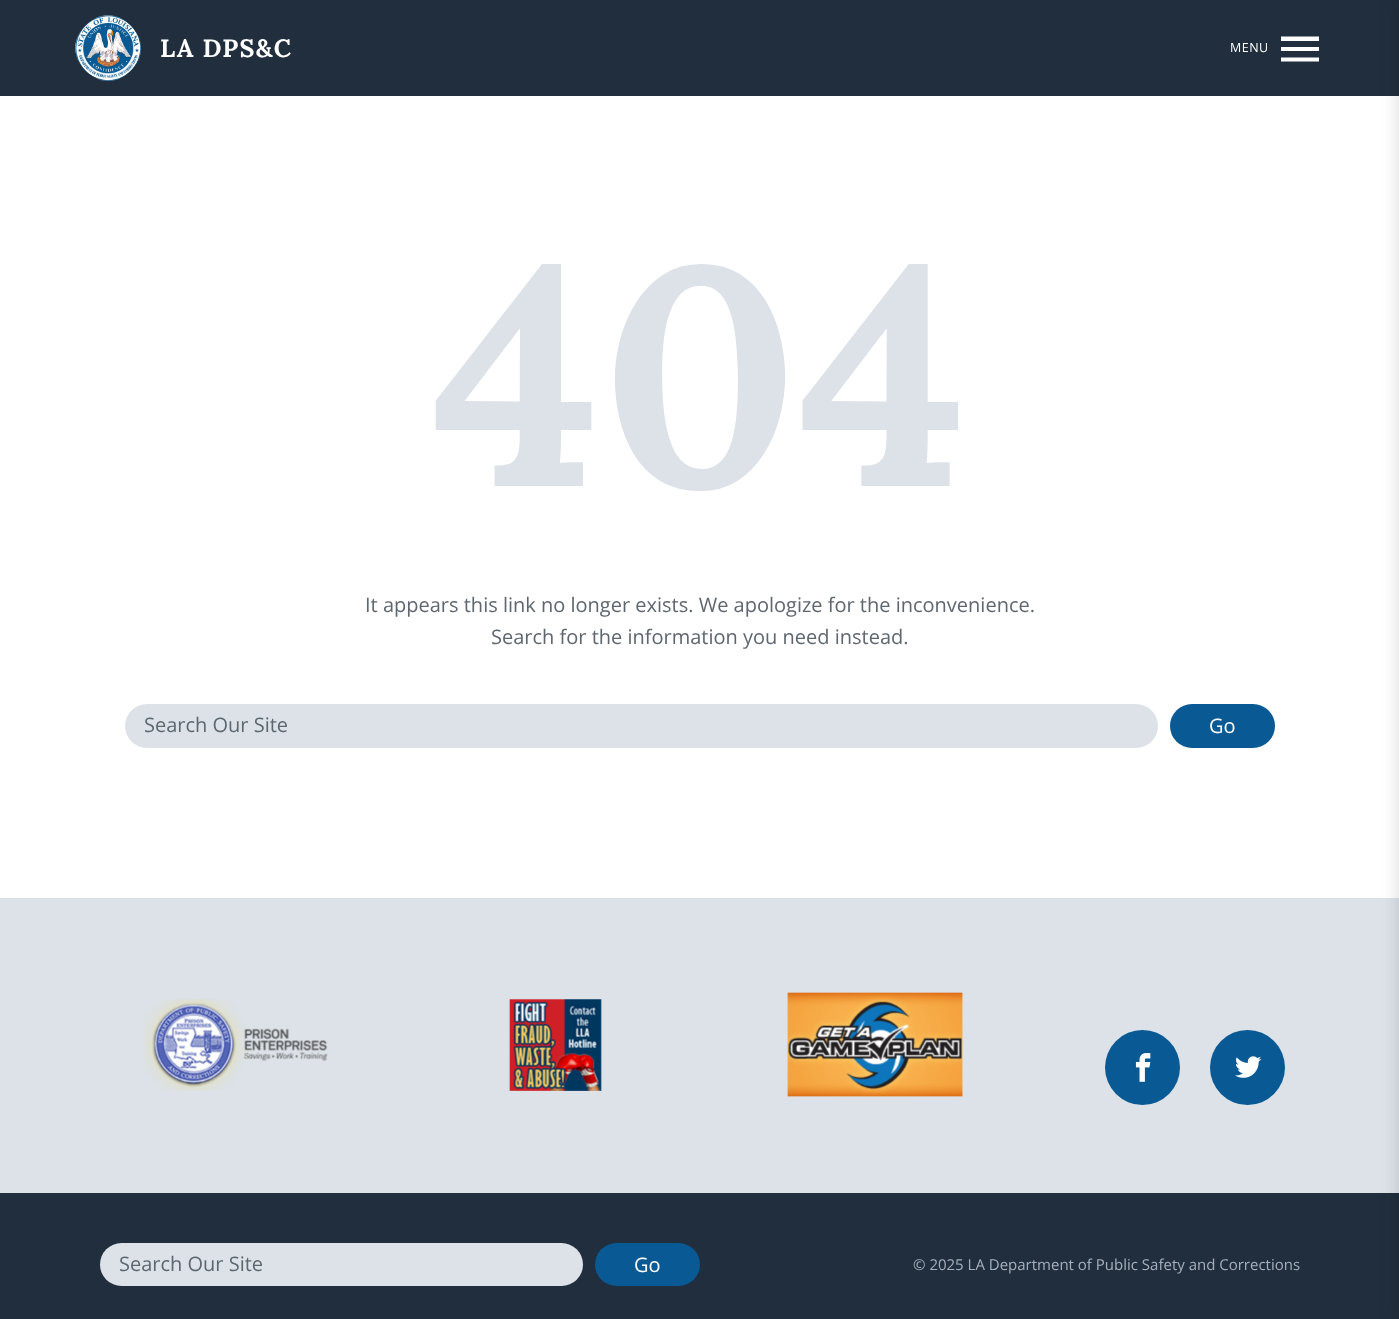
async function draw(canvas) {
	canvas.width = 1399;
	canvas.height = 1319;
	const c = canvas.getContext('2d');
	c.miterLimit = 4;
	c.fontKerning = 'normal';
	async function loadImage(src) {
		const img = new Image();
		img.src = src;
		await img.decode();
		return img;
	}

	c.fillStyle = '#fff';
	c.fillRect(0, 0, 1399, 1319);
	c.fillStyle = '#212e3d';
	c.fillRect(0, 0, 1399, 96);
	c.drawImage(await loadImage('img1.png'), 75, 15, 66, 66);
	c.letterSpacing = '1.25px';
	c.font = 'bold 25px Lora';
	c.fillStyle = '#fff';
	c.fillText('LA DPS&C', 160, 57);
	c.letterSpacing = '0.5px';
	c.font = '12.5px Open Sans';
	c.fillText('MENU', 1230, 52);
	c.beginPath();
	c.moveTo(1281, 61.5);
	c.lineTo(1319, 61.5);
	c.lineTo(1319, 57.5);
	c.lineTo(1281, 57.5);
	c.closePath();
	c.moveTo(1281, 51);
	c.lineTo(1319, 51);
	c.lineTo(1319, 47);
	c.lineTo(1281, 47);
	c.closePath();
	c.moveTo(1281, 36.5);
	c.lineTo(1281, 41);
	c.lineTo(1319, 41);
	c.lineTo(1319, 36.5);
	c.closePath();
	c.fill();
	c.fillStyle = '#dce2e8';
	c.fillRect(0, 898, 1399, 295);
	c.fillStyle = '#212e3d';
	c.fillRect(0, 1193, 1399, 126);
	c.fillStyle = '#00000029';
	c.filter = 'blur(9.5px)';
	c.beginPath();
	c.rect(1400, 0, 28, 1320);
	c.fill();
	c.filter = 'none';
	c.letterSpacing = '0px';
	c.font = 'bold 310px Lora';
	c.fillStyle = '#dce2e8';
	c.fillText('404', 432, 486);
	c.font = '20px Open Sans';
	c.fillStyle = '#5e6770';
	c.fillText('It appears this link no longer exists. We apologize for the inconvenience.', 365, 612);
	c.fillText('Search for the information you need instead.', 491, 644);
	c.fillStyle = '#dce2e8';
	c.beginPath();
	c.roundRect(125, 704, 1033, 44, 22);
	c.fill();
	c.fillStyle = '#5e6770';
	c.fillText('Search Our Site', 144, 732);
	c.fillStyle = '#095994';
	c.beginPath();
	c.roundRect(1170, 704, 105, 44, 22);
	c.fill();
	c.fillStyle = '#fff';
	c.fillText('Go', 1209, 733);
	c.drawImage(await loadImage('img2.png'), 144, 999, 184, 92);
	c.drawImage(await loadImage('img3.png'), 509, 999, 93, 92);
	c.drawImage(await loadImage('img4.png'), 787, 992, 176, 105);
	c.fillStyle = '#095994';
	c.beginPath();
	c.arc(1142.5, 1067.5, 37.5, 0, 2 * Math.PI);
	c.fill();
	c.drawImage(await loadImage('img5.png'), 1135, 1053, 16, 29);
	c.beginPath();
	c.arc(1247.5, 1067.5, 37.5, 0, 2 * Math.PI);
	c.fill();
	c.drawImage(await loadImage('img6.png'), 1235, 1056, 27, 22);
	c.fillStyle = '#dce2e8';
	c.beginPath();
	c.roundRect(100, 1243, 483, 43, 21.5);
	c.fill();
	c.fillStyle = '#5e6770';
	c.fillText('Search Our Site', 119, 1271);
	c.fillStyle = '#095994';
	c.beginPath();
	c.roundRect(595, 1243, 105, 43, 21.5);
	c.fill();
	c.fillStyle = '#fff';
	c.fillText('Go', 634, 1272);
	c.font = '15px Open Sans';
	c.fillStyle = '#a4b0bd';
	c.fillText('© 2025 LA Department of Public Safety and Corrections', 913, 1270);
}

draw(document.querySelector('canvas'));
